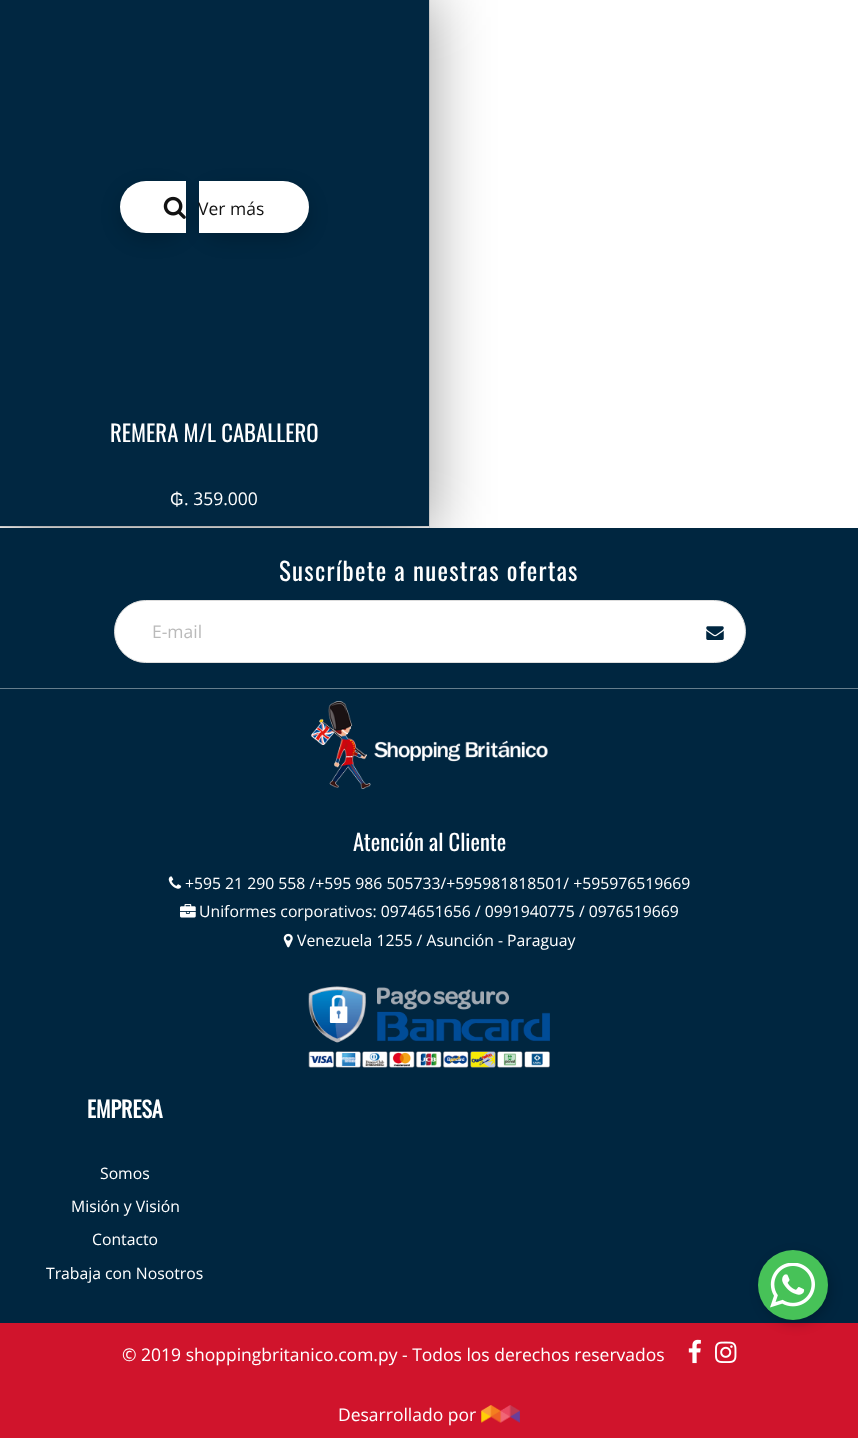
async function draw(canvas) {
	canvas.width = 858;
	canvas.height = 1438;
	const c = canvas.getContext('2d');
	c.miterLimit = 4;
	c.fontKerning = 'normal';
	async function loadImage(src) {
		const img = new Image();
		img.src = src;
		await img.decode();
		return img;
	}

	c.fillStyle = '#fff';
	c.fillRect(0, 0, 858, 1438);
	c.fillStyle = '#e6e6e6';
	c.fillRect(429, 0, 1, 528);
	c.fillRect(0, 526, 430, 1);
	c.fillStyle = '#00000066';
	c.filter = 'blur(31px)';
	c.beginPath();
	c.rect(0, -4, 429, 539);
	c.fill();
	c.filter = 'none';
	c.fillStyle = '#012741';
	c.fillRect(0, 0, 429, 526);
	c.fillStyle = '#01010133';
	c.filter = 'blur(9.5px)';
	c.beginPath();
	c.roundRect(120, 188, 66, 51, 25.5);
	c.fill();
	c.filter = 'none';
	c.fillStyle = '#fff';
	c.beginPath();
	c.roundRect(120, 181, 66, 52, [26, 0, 0, 26]);
	c.fill();
	c.fillStyle = '#01010133';
	c.filter = 'blur(9.5px)';
	c.beginPath();
	c.roundRect(199, 188, 110, 51, 25.5);
	c.fill();
	c.filter = 'none';
	c.fillStyle = '#fff';
	c.beginPath();
	c.roundRect(199, 181, 110, 52, [0, 26, 26, 0]);
	c.fill();
	c.drawImage(await loadImage('img1.png'), 163, 196, 23, 23);
	c.font = '17.5px Open Sans';
	c.fillStyle = '#121212';
	c.fillText('Ver más', 198, 215);
	c.font = '22.75px Oswald';
	c.fillStyle = '#fff';
	c.fillText('REMERA M/L CABALLERO', 110, 442);
	c.font = '17.5px Liberation Sans';
	c.fillText('₲', 170, 505);
	c.font = '17.5px Open Sans';
	c.fillText('. 359.000', 184, 505);
	c.fillStyle = '#002640';
	c.fillRect(0, 528, 858, 160);
	c.fillStyle = '#667d8c';
	c.fillRect(0, 688, 858, 1);
	c.letterSpacing = '1.25px';
	c.font = '25px Oswald';
	c.fillStyle = '#fff';
	c.fillText('Suscríbete a nuestras ofertas', 279, 581);
	c.beginPath();
	c.roundRect(114.5, 600.5, 631, 62, 31);
	c.fill();
	c.strokeStyle = '#ddd';
	c.stroke();
	c.letterSpacing = '0px';
	c.font = '17.5px Open Sans';
	c.fillStyle = '#bababa';
	c.fillText('E-mail', 152, 638);
	c.drawImage(await loadImage('img2.png'), 706, 626, 18, 14);
	c.fillStyle = '#002640';
	c.fillRect(0, 689, 858, 634);
	c.drawImage(await loadImage('img3.png'), 311, 701, 237, 88);
	c.font = '22.5px Oswald';
	c.fillStyle = '#fff';
	c.fillText('Atención al Cliente', 353, 851);
	c.drawImage(await loadImage('img4.png'), 168, 876, 14, 13);
	c.font = '15.75px Open Sans';
	c.fillText('+595 21 290 558 /+595 986 505733/+595981818501/ +595976519669', 185, 889);
	c.drawImage(await loadImage('img5.png'), 180, 904, 16, 14);
	c.fillText('Uniformes corporativos: 0974651656 / 0991940775 / 0976519669', 199, 917);
	c.drawImage(await loadImage('img6.png'), 283, 933, 10, 15);
	c.fillText('Venezuela 1255 / Asunción - Paraguay', 297, 946);
	c.drawImage(await loadImage('img7.png'), 308, 986, 242, 82);
	c.font = 'bold 22px Oswald';
	c.fillText('EMPRESA', 87, 1118);
	c.font = '15.75px Open Sans';
	for (const [text, x, y] of [
		['Somos', 100, 1179],
		['Misión y Visión', 71, 1212],
		['Contacto', 92, 1245],
		['Trabaja con Nosotros', 46, 1279],
	]) {
		c.fillText(text, x, y);
	}
	c.fillStyle = '#d0142c';
	c.fillRect(0, 1323, 858, 115);
	c.fillStyle = '#00000033';
	c.filter = 'blur(6px)';
	c.beginPath();
	c.roundRect(761, 1254, 70, 70, 35);
	c.fill();
	c.filter = 'none';
	c.fillStyle = '#47c258';
	c.beginPath();
	c.arc(793, 1285, 35, 0, 2 * Math.PI);
	c.fill();
	c.drawImage(await loadImage('img8.png'), 770, 1263, 45, 45);
	c.font = '17.5px Open Sans';
	c.fillStyle = '#fff';
	c.fillText('© 2019 shoppingbritanico.com.py - Todos los derechos reservados', 122, 1361);
	c.drawImage(await loadImage('img9.png'), 688, 1339, 13, 25);
	c.drawImage(await loadImage('img10.png'), 715, 1341, 22, 22);
	c.fillText('Desarrollado por', 338, 1421);
	c.drawImage(await loadImage('img11.png'), 481, 1405, 39, 18);
}

draw(document.querySelector('canvas'));
